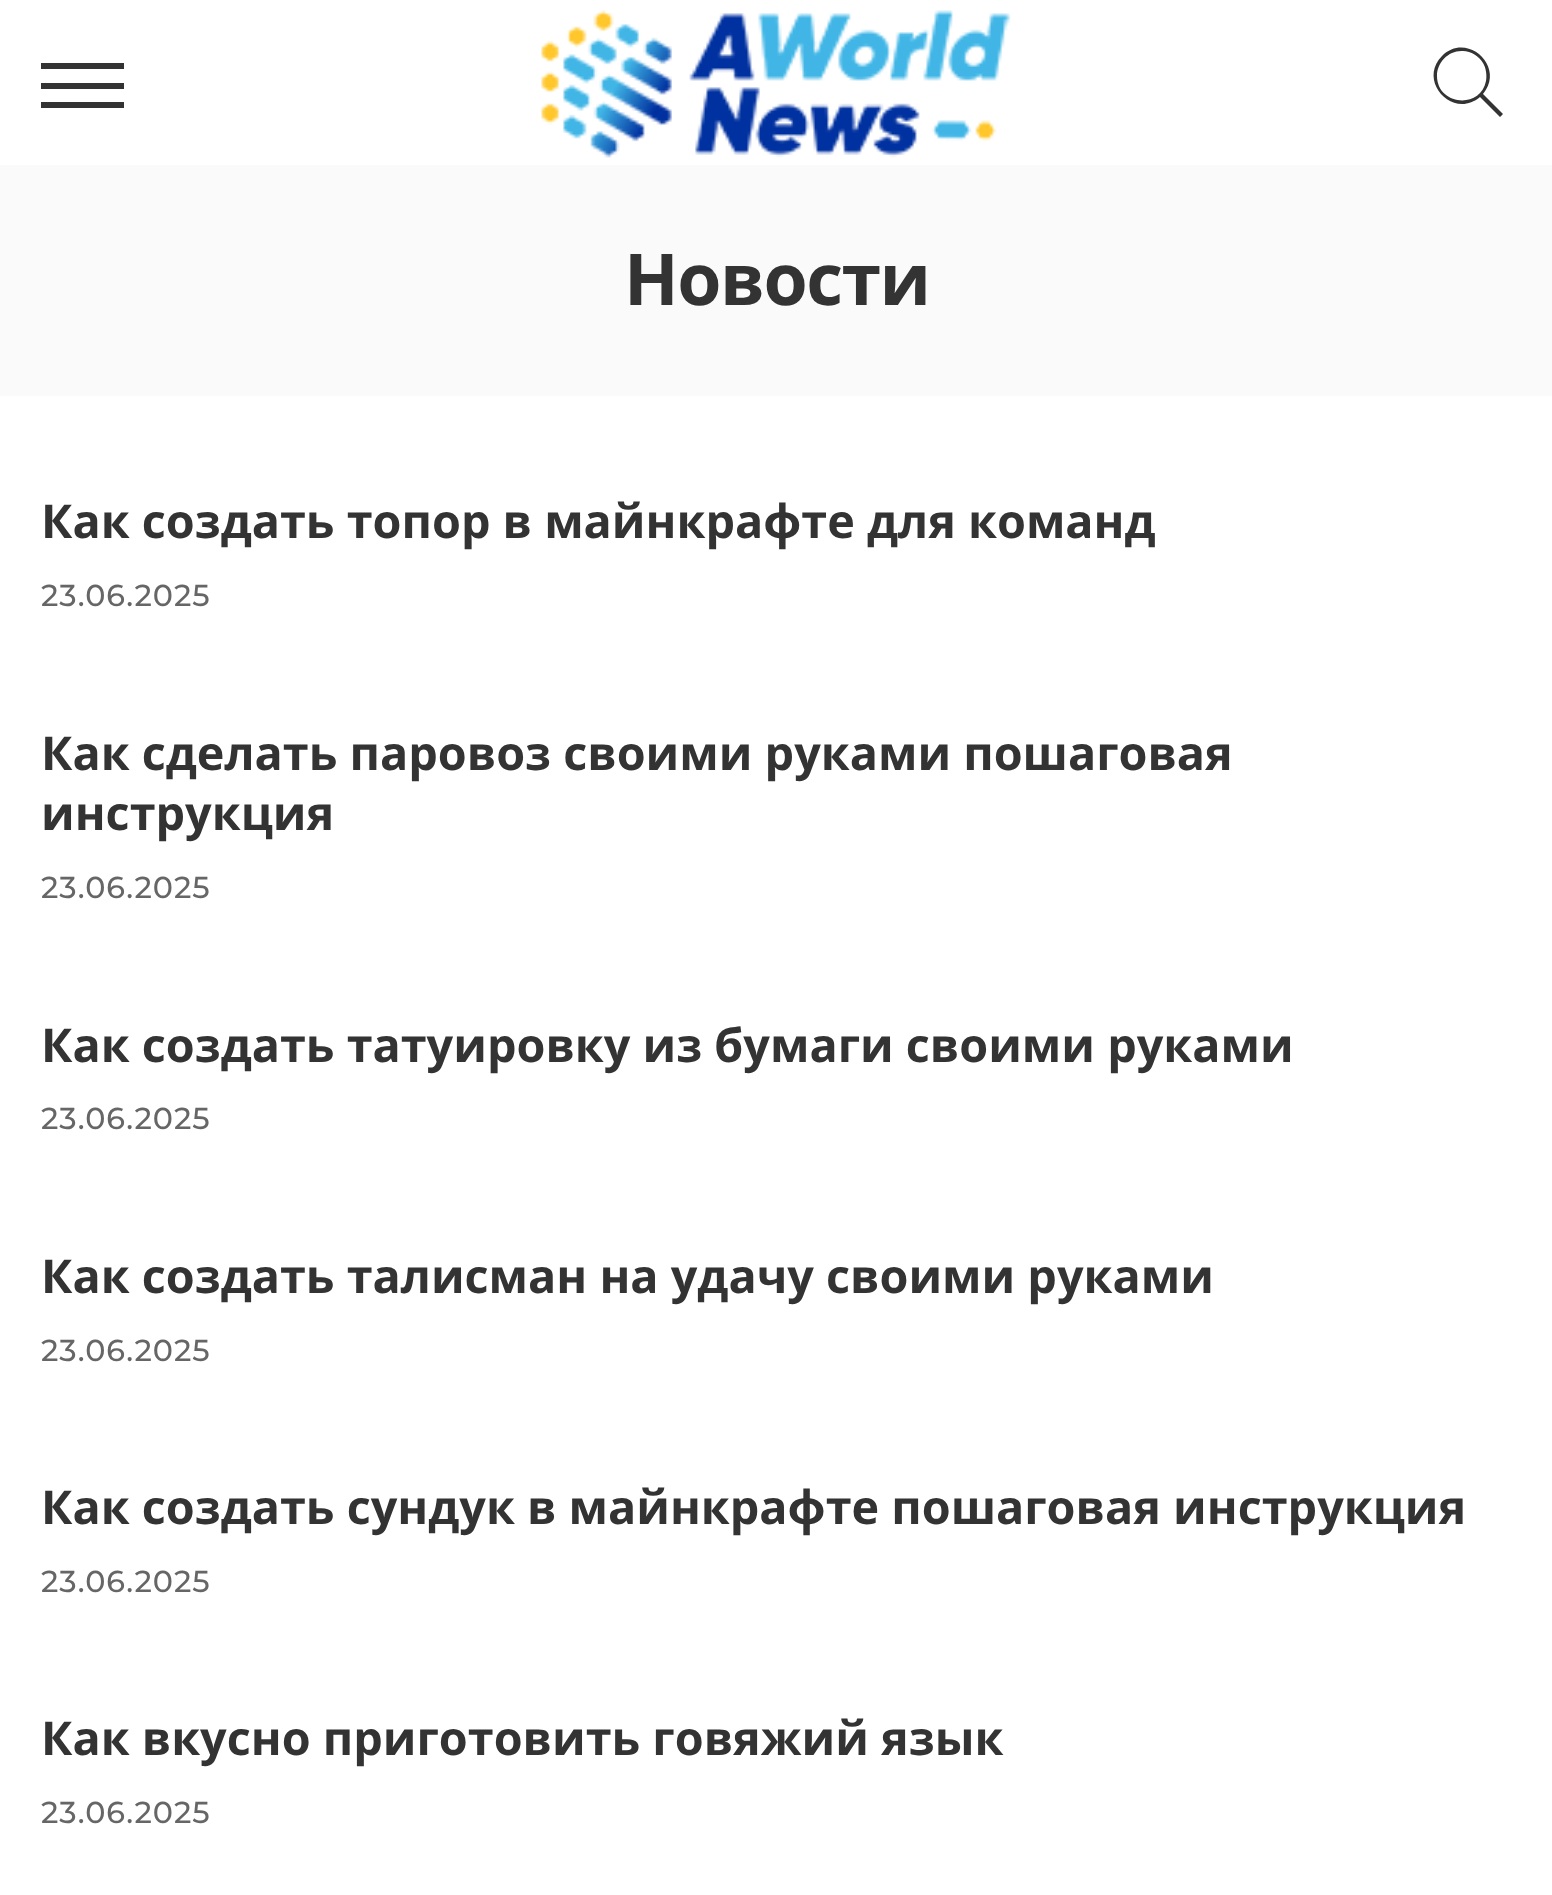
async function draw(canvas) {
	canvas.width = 1552;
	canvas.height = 1895;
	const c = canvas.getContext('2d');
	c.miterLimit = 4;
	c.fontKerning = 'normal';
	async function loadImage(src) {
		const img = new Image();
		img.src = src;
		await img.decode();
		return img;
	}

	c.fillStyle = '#fff';
	c.fillRect(0, 0, 1552, 1895);
	for (const [x, y, w, h, color] of [
		[41, 83, 83, 6, '#333'],
		[41, 63, 83, 6, '#333'],
		[41, 102, 83, 6, '#333'],
	]) {
		c.fillStyle = color;
		c.fillRect(x, y, w, h);
	}
	c.drawImage(await loadImage('img1.png'), 541, 10, 470, 148);
	c.beginPath();
	c.moveTo(1503, 114);
	c.lineTo(1483, 94);
	c.bezierCurveTo(1506, 67, 1467, 31, 1442, 56);
	c.bezierCurveTo(1417, 81, 1453, 120, 1480, 97);
	c.lineTo(1500, 117);
	c.closePath();
	c.moveTo(1437, 76);
	c.bezierCurveTo(1437, 62, 1449, 50, 1463, 51);
	c.bezierCurveTo(1471, 51, 1479, 56, 1483, 63);
	c.bezierCurveTo(1486, 68, 1487, 75, 1486, 81);
	c.bezierCurveTo(1480, 110, 1437, 105, 1437, 76);
	c.closePath();
	c.fill();
	c.fillStyle = '#fafafa';
	c.fillRect(0, 165, 1552, 231);
	c.letterSpacing = '-1.5px';
	c.font = 'bold 71.5px Open Sans';
	c.fillStyle = '#333';
	c.fillText('Новости', 624, 305);
	c.letterSpacing = '0px';
	c.font = 'bold 46.75px Open Sans';
	c.fillText('Как создать топор в майнкрафте для команд', 41, 538);
	c.letterSpacing = '1px';
	c.font = '500 30.25px Montserrat';
	c.fillStyle = '#666';
	c.fillText('23.06.2025', 41, 606);
	c.letterSpacing = '0px';
	c.font = 'bold 46.75px Open Sans';
	c.fillStyle = '#333';
	c.fillText('Как сделать паровоз своими руками пошаговая', 41, 770);
	c.fillText('инструкция', 41, 830);
	c.letterSpacing = '1px';
	c.font = '500 30.25px Montserrat';
	c.fillStyle = '#666';
	c.fillText('23.06.2025', 41, 898);
	c.letterSpacing = '0px';
	c.font = 'bold 46.75px Open Sans';
	c.fillStyle = '#333';
	c.fillText('Как создать татуировку из бумаги своими руками', 41, 1062);
	c.letterSpacing = '1px';
	c.font = '500 30.25px Montserrat';
	c.fillStyle = '#666';
	c.fillText('23.06.2025', 41, 1129);
	c.letterSpacing = '0px';
	c.font = 'bold 46.75px Open Sans';
	c.fillStyle = '#333';
	c.fillText('Как создать талисман на удачу своими руками', 41, 1293);
	c.letterSpacing = '1px';
	c.font = '500 30.25px Montserrat';
	c.fillStyle = '#666';
	c.fillText('23.06.2025', 41, 1361);
	c.letterSpacing = '0px';
	c.font = 'bold 46.75px Open Sans';
	c.fillStyle = '#333';
	c.fillText('Как создать сундук в майнкрафте пошаговая инструкция', 41, 1524);
	c.letterSpacing = '1px';
	c.font = '500 30.25px Montserrat';
	c.fillStyle = '#666';
	c.fillText('23.06.2025', 41, 1592);
	c.letterSpacing = '0px';
	c.font = 'bold 46.75px Open Sans';
	c.fillStyle = '#333';
	c.fillText('Как вкусно приготовить говяжий язык', 41, 1755);
	c.letterSpacing = '1px';
	c.font = '500 30.25px Montserrat';
	c.fillStyle = '#666';
	c.fillText('23.06.2025', 41, 1823);
}

draw(document.querySelector('canvas'));
